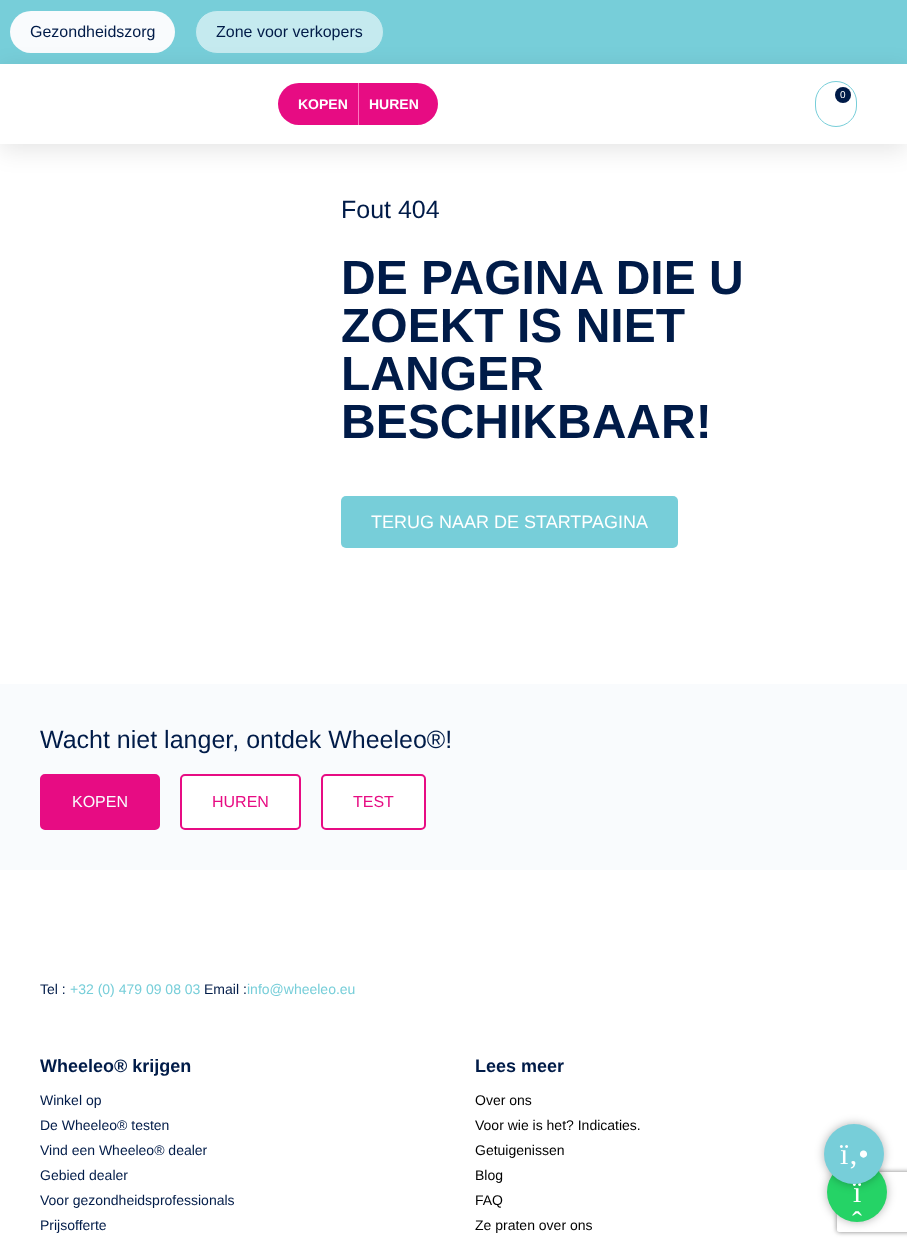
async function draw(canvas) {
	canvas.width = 907;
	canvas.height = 1246;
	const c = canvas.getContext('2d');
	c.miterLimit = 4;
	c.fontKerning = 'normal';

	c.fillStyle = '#fff';
	c.fillRect(0, 0, 907, 1246);
	c.fillStyle = '#77ced9';
	c.fillRect(0, 0, 907, 64);
	c.fillStyle = '#f9fbfd';
	c.beginPath();
	c.roundRect(10, 11, 165, 42, 21);
	c.fill();
	c.font = '16px Liberation Sans';
	c.fillStyle = '#001b48';
	c.fillText('Gezondheidszorg', 30, 37);
	c.fillStyle = '#c5eaef';
	c.beginPath();
	c.roundRect(195.5, 10.5, 188, 43, 21.5);
	c.fill();
	c.strokeStyle = '#77ced9';
	c.stroke();
	c.fillStyle = '#001b48';
	c.fillText('Zone voor verkopers', 216, 37);
	c.save();
	c.beginPath();
	c.moveTo(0, 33);
	c.lineTo(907, 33);
	c.lineTo(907, 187);
	c.lineTo(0, 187);
	c.closePath();
	c.moveTo(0, 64);
	c.lineTo(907, 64);
	c.lineTo(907, 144);
	c.lineTo(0, 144);
	c.closePath();
	c.clip('evenodd');
	c.fillStyle = '#0000001a';
	c.filter = 'blur(12px)';
	c.beginPath();
	c.rect(0, 70, 907, 80);
	c.fill();
	c.filter = 'none';
	c.restore();
	c.beginPath();
	c.roundRect(815.5, 81.5, 41, 45, 20.5);
	c.stroke();
	c.beginPath();
	c.arc(843, 95, 8, 0, 2 * Math.PI);
	c.fill();
	c.font = '10px Liberation Sans';
	c.fillStyle = '#fff';
	c.fillText('0', 840, 98);
	c.fillStyle = '#e70c83';
	c.beginPath();
	c.roundRect(278, 83, 80, 42, [21, 0, 0, 21]);
	c.fill();
	c.font = 'bold 14px Liberation Sans';
	c.fillStyle = '#fff';
	c.fillText('KOPEN', 298, 109);
	c.fillStyle = '#e70c83';
	c.beginPath();
	c.roundRect(359, 83, 79, 42, [0, 21, 21, 0]);
	c.fill();
	c.fillStyle = '#ff76c0';
	c.fillRect(358, 83, 1, 42);
	c.fillStyle = '#fff';
	c.fillText('HUREN', 369, 109);
	c.font = '25px Liberation Sans';
	c.fillStyle = '#001b48';
	c.fillText('Fout 404', 341, 218);
	c.font = 'bold 48px Liberation Sans';
	for (const [text, x, y] of [
		['DE PAGINA DIE U', 341, 294],
		['ZOEKT IS NIET', 341, 342],
		['LANGER', 341, 390],
		['BESCHIKBAAR!', 341, 438],
	]) {
		c.fillText(text, x, y);
	}
	c.fillStyle = '#77ced9';
	c.beginPath();
	c.roundRect(341, 496, 337, 52, 5);
	c.fill();
	c.font = '18px Liberation Sans';
	c.fillStyle = '#fff';
	c.fillText('TERUG NAAR DE STARTPAGINA', 371, 528);
	c.fillStyle = '#f9fbfd';
	c.fillRect(0, 684, 907, 186);
	c.font = '25px Liberation Sans';
	c.fillStyle = '#001b48';
	c.fillText('Wacht niet langer, ontdek Wheeleo®!', 40, 748);
	c.fillStyle = '#e70c83';
	c.beginPath();
	c.roundRect(41, 775, 118, 54, 4);
	c.fill();
	c.strokeStyle = '#e70c83';
	c.lineWidth = 2;
	c.stroke();
	c.font = '16px Liberation Sans';
	c.fillStyle = '#f9fbfd';
	c.fillText('KOPEN', 72, 807);
	c.fillStyle = '#fff';
	c.beginPath();
	c.roundRect(181, 775, 119, 54, 4);
	c.fill();
	c.stroke();
	c.fillStyle = '#e70c83';
	c.fillText('HUREN', 212, 807);
	c.fillStyle = '#fff';
	c.beginPath();
	c.roundRect(322, 775, 103, 54, 4);
	c.fill();
	c.stroke();
	c.fillStyle = '#e70c83';
	c.fillText('TEST', 353, 807);
	c.font = '14px Liberation Sans';
	c.fillStyle = '#001b48';
	c.fillText('Tel :', 40, 994);
	c.fillStyle = '#77ced9';
	c.fillText('+32 (0) 479 09 08 03', 70, 994);
	c.fillStyle = '#001b48';
	c.fillText('Email :', 204, 994);
	c.fillStyle = '#77ced9';
	c.fillText('info@wheeleo.eu', 247, 994);
	c.font = 'bold 18px Liberation Sans';
	c.fillStyle = '#001b48';
	c.fillText('Wheeleo® krijgen', 40, 1072);
	c.font = '14px Liberation Sans';
	for (const [text, x, y] of [
		['Winkel op', 40, 1105],
		['De Wheeleo® testen', 40, 1130],
		['Vind een Wheeleo® dealer', 40, 1155],
		['Gebied dealer', 40, 1180],
		['Voor gezondheidsprofessionals', 40, 1205],
		['Prijsofferte', 40, 1230],
	]) {
		c.fillText(text, x, y);
	}
	c.font = 'bold 18px Liberation Sans';
	c.fillText('Lees meer', 475, 1072);
	c.font = '14px Liberation Sans';
	c.fillStyle = '#000';
	for (const [text, x, y] of [
		['Over ons', 475, 1105],
		['Voor wie is het? Indicaties.', 475, 1130],
		['Getuigenissen', 475, 1155],
		['Blog', 475, 1180],
		['FAQ', 475, 1205],
		['Ze praten over ons', 475, 1230],
	]) {
		c.fillText(text, x, y);
	}
	c.fillStyle = '#0000004d';
	c.filter = 'blur(5px)';
	c.beginPath();
	c.roundRect(827, 1162, 60, 60, 30);
	c.fill();
	c.filter = 'none';
	c.save();
	c.beginPath();
	c.moveTo(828, 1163);
	c.lineTo(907, 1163);
	c.lineTo(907, 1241);
	c.lineTo(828, 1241);
	c.closePath();
	c.moveTo(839, 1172);
	c.lineTo(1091, 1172);
	c.bezierCurveTo(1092, 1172, 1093, 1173, 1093, 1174);
	c.lineTo(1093, 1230);
	c.bezierCurveTo(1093, 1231, 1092, 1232, 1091, 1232);
	c.lineTo(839, 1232);
	c.bezierCurveTo(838, 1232, 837, 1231, 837, 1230);
	c.lineTo(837, 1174);
	c.bezierCurveTo(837, 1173, 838, 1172, 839, 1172);
	c.closePath();
	c.clip('evenodd');
	c.fillStyle = '#808080';
	c.filter = 'blur(2.5px)';
	c.beginPath();
	c.roundRect(837, 1172, 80, 60, 2);
	c.fill();
	c.filter = 'none';
	c.restore();
	c.fillStyle = '#25d366';
	c.beginPath();
	c.arc(857, 1192, 30, 0, 2 * Math.PI);
	c.fill();
	c.fillStyle = '#0000004d';
	c.filter = 'blur(5px)';
	c.beginPath();
	c.roundRect(824, 1124, 60, 60, 30);
	c.fill();
	c.filter = 'none';
	c.font = '30px Liberation Serif';
	c.fillStyle = '#fff';
	c.fillText('ï', 853, 1202);
	c.fillStyle = '#77ced9';
	c.beginPath();
	c.arc(854, 1154, 30, 0, 2 * Math.PI);
	c.fill();
	c.fillStyle = '#fff';
	c.fillText('ï‚•', 840, 1164);
	c.fillText('ˆ', 852, 1232);
}

draw(document.querySelector('canvas'));
